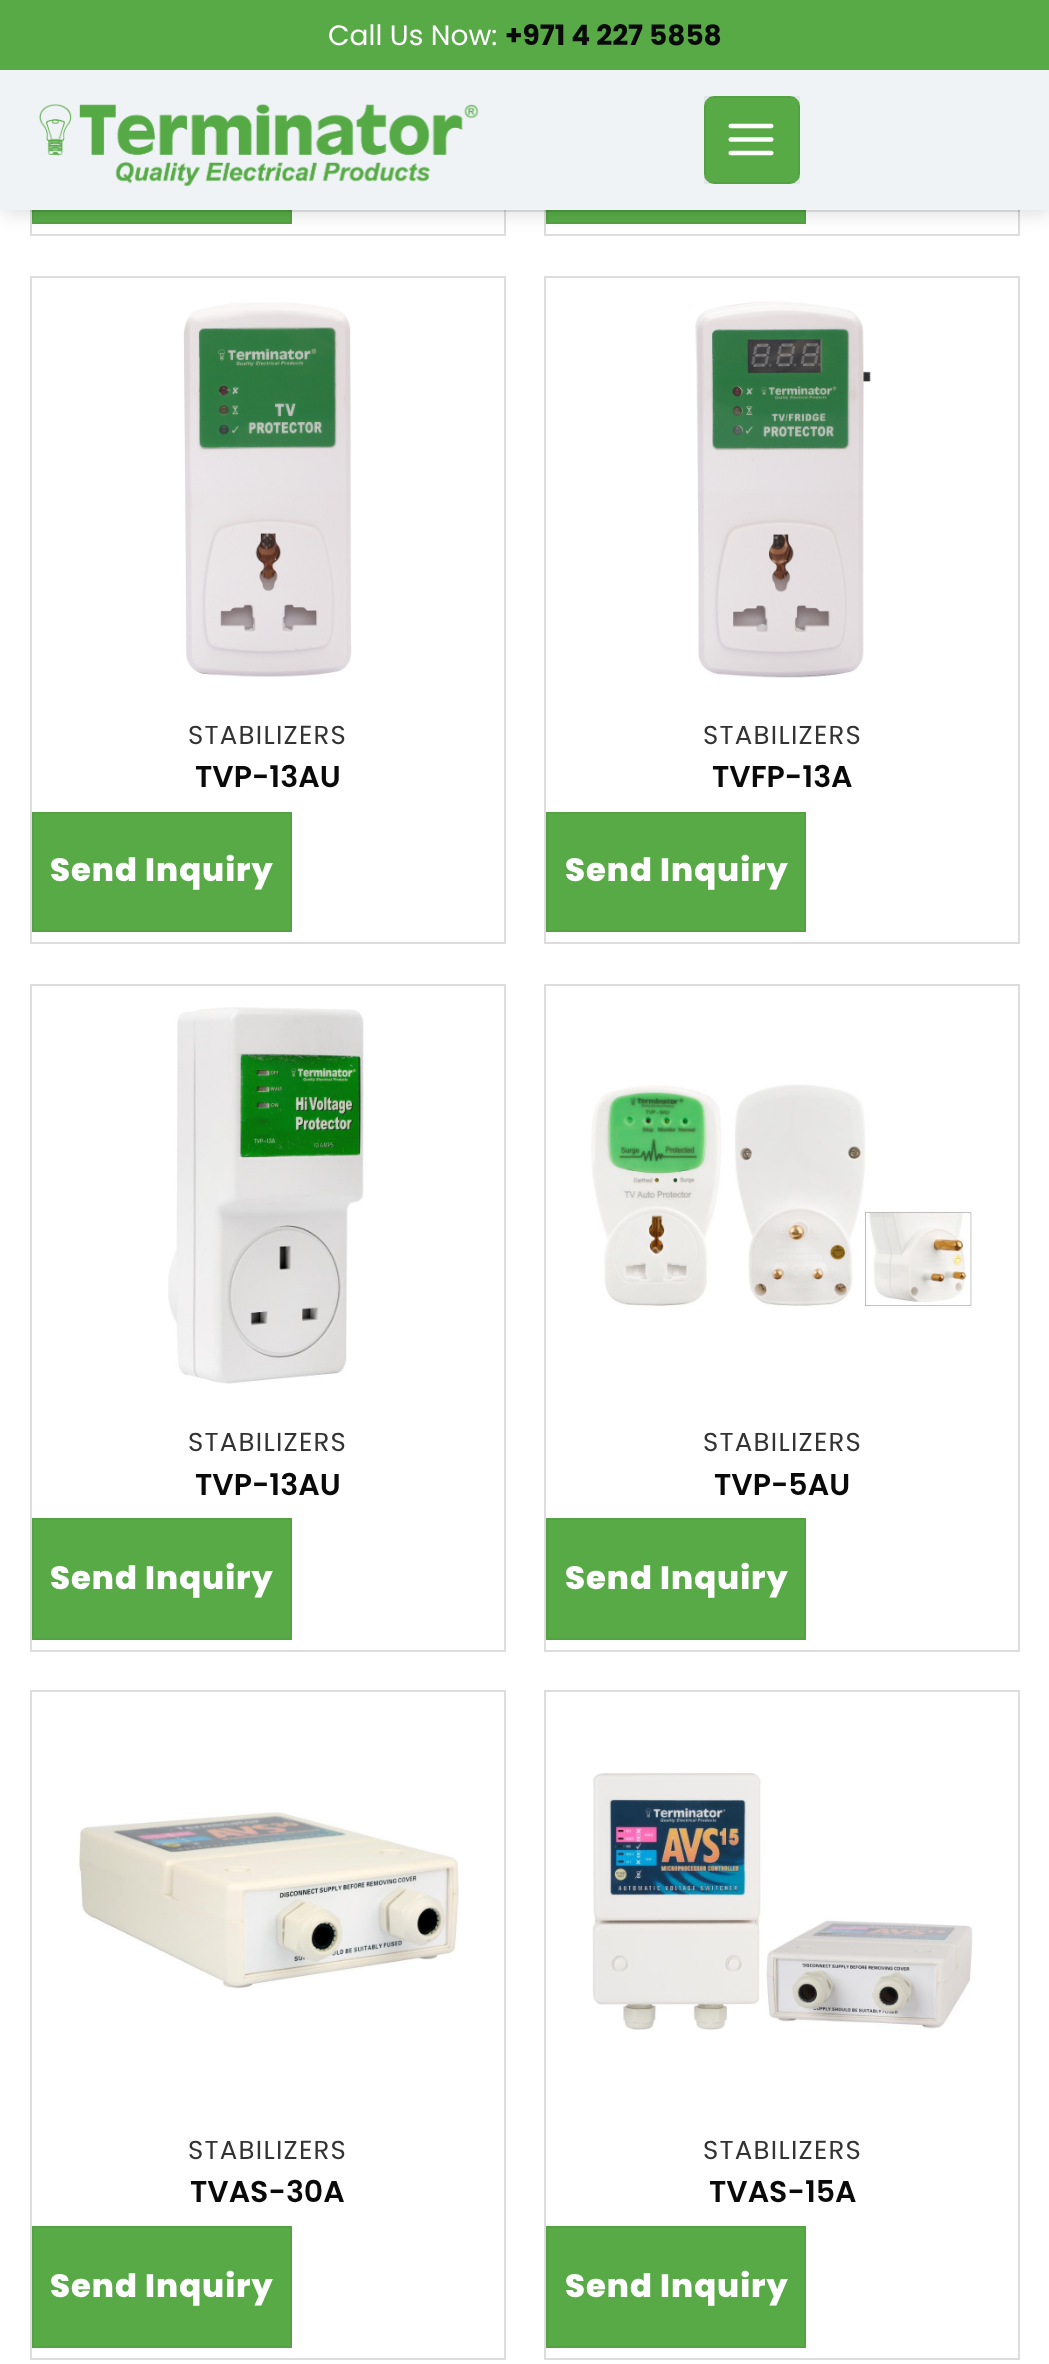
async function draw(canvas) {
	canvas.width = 1049;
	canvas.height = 2364;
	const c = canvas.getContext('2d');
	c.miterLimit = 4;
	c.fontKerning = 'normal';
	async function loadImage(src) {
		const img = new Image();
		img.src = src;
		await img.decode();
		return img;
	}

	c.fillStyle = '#fff';
	c.fillRect(0, 0, 1049, 2364);
	c.strokeStyle = '#ddd';
	c.lineWidth = 2;
	c.strokeRect(31, -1, 474, 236);
	c.fillStyle = '#58aa47';
	c.fillRect(34, 210, 256, 12);
	c.strokeStyle = '#54a243';
	c.strokeRect(33, 105, 258, 118);
	c.strokeStyle = '#ddd';
	c.strokeRect(545, -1, 474, 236);
	c.fillRect(548, 210, 256, 12);
	c.strokeStyle = '#54a243';
	c.strokeRect(547, 105, 258, 118);
	c.fillStyle = '#00000026';
	c.filter = 'blur(10px)';
	c.beginPath();
	c.rect(2, 2, 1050, 210);
	c.fill();
	c.filter = 'none';
	c.fillStyle = '#58aa47';
	c.fillRect(0, 0, 1049, 70);
	c.font = '28px Poppins';
	c.fillStyle = '#fff';
	c.fillText('Call Us Now:', 328, 45);
	c.font = 'bold 28px Poppins';
	c.fillStyle = '#0a0a0a';
	c.fillText('+971 4 227 5858', 505, 45);
	c.fillStyle = '#eff3f5';
	c.fillRect(0, 70, 1049, 140);
	c.drawImage(await loadImage('img1.png'), 39, 104, 440, 82);
	c.fillStyle = '#58aa47';
	c.beginPath();
	c.roundRect(704, 96, 96, 88, 10);
	c.fill();
	c.strokeStyle = '#0000000d';
	c.strokeRect(705, 97, 94, 86);
	c.drawImage(await loadImage('img2.png'), 728, 123, 46, 33);
	c.fillStyle = '#0000001a';
	c.fillRect(30, 210, 990, 2);
	c.strokeStyle = '#ddd';
	c.strokeRect(31, 277, 474, 666);
	c.drawImage(await loadImage('img3.png'), 183, 302, 169, 375);
	c.letterSpacing = '1.25px';
	c.font = '26px Poppins';
	c.fillStyle = '#333';
	c.fillText('STABILIZERS', 188, 744);
	c.letterSpacing = '0px';
	c.font = '600 30px Poppins';
	c.fillStyle = '#0a0a0a';
	c.fillText('TVP-13AU', 195, 787);
	c.fillStyle = '#58aa47';
	c.beginPath();
	c.rect(33, 813, 258, 118);
	c.fill();
	c.strokeStyle = '#54a243';
	c.stroke();
	c.letterSpacing = '1px';
	c.font = '800 32.25px Poppins';
	c.fillStyle = '#fff';
	c.fillText('Send Inquiry', 50, 881);
	c.strokeStyle = '#ddd';
	c.strokeRect(545, 277, 474, 666);
	c.drawImage(await loadImage('img4.png'), 695, 301, 176, 377);
	c.letterSpacing = '1.25px';
	c.font = '26px Poppins';
	c.fillStyle = '#333';
	c.fillText('STABILIZERS', 703, 744);
	c.letterSpacing = '0px';
	c.font = '600 30px Poppins';
	c.fillStyle = '#0a0a0a';
	c.fillText('TVFP-13A', 712, 787);
	c.fillStyle = '#58aa47';
	c.beginPath();
	c.rect(547, 813, 258, 118);
	c.fill();
	c.strokeStyle = '#54a243';
	c.stroke();
	c.letterSpacing = '1px';
	c.font = '800 32.25px Poppins';
	c.fillStyle = '#fff';
	c.fillText('Send Inquiry', 565, 881);
	c.strokeStyle = '#ddd';
	c.strokeRect(31, 985, 474, 666);
	c.drawImage(await loadImage('img5.png'), 168, 1007, 196, 377);
	c.letterSpacing = '1.25px';
	c.font = '26px Poppins';
	c.fillStyle = '#333';
	c.fillText('STABILIZERS', 188, 1451);
	c.letterSpacing = '0px';
	c.font = '600 30px Poppins';
	c.fillStyle = '#0a0a0a';
	c.fillText('TVP-13AU', 195, 1495);
	c.fillStyle = '#58aa47';
	c.beginPath();
	c.rect(33, 1519, 258, 120);
	c.fill();
	c.strokeStyle = '#54a243';
	c.stroke();
	c.letterSpacing = '1px';
	c.font = '800 32.25px Poppins';
	c.fillStyle = '#fff';
	c.fillText('Send Inquiry', 50, 1589);
	c.strokeStyle = '#ddd';
	c.strokeRect(545, 985, 474, 666);
	c.drawImage(await loadImage('img6.png'), 591, 1084, 381, 224);
	c.letterSpacing = '1.25px';
	c.font = '26px Poppins';
	c.fillStyle = '#333';
	c.fillText('STABILIZERS', 703, 1451);
	c.letterSpacing = '0px';
	c.font = '600 30px Poppins';
	c.fillStyle = '#0a0a0a';
	c.fillText('TVP-5AU', 714, 1495);
	c.fillStyle = '#58aa47';
	c.beginPath();
	c.rect(547, 1519, 258, 120);
	c.fill();
	c.strokeStyle = '#54a243';
	c.stroke();
	c.letterSpacing = '1px';
	c.font = '800 32.25px Poppins';
	c.fillStyle = '#fff';
	c.fillText('Send Inquiry', 565, 1589);
	c.strokeStyle = '#ddd';
	c.strokeRect(31, 1691, 474, 668);
	c.drawImage(await loadImage('img7.png'), 78, 1812, 381, 177);
	c.letterSpacing = '1.25px';
	c.font = '26px Poppins';
	c.fillStyle = '#333';
	c.fillText('STABILIZERS', 188, 2159);
	c.letterSpacing = '0px';
	c.font = '600 30px Poppins';
	c.fillStyle = '#0a0a0a';
	c.fillText('TVAS-30A', 190, 2202);
	c.fillStyle = '#58aa47';
	c.beginPath();
	c.rect(33, 2227, 258, 120);
	c.fill();
	c.strokeStyle = '#54a243';
	c.stroke();
	c.letterSpacing = '1px';
	c.font = '800 32.25px Poppins';
	c.fillStyle = '#fff';
	c.fillText('Send Inquiry', 50, 2297);
	c.strokeStyle = '#ddd';
	c.strokeRect(545, 1691, 474, 668);
	c.drawImage(await loadImage('img8.png'), 592, 1772, 381, 258);
	c.letterSpacing = '1.25px';
	c.font = '26px Poppins';
	c.fillStyle = '#333';
	c.fillText('STABILIZERS', 703, 2159);
	c.letterSpacing = '0px';
	c.font = '600 30px Poppins';
	c.fillStyle = '#0a0a0a';
	c.fillText('TVAS-15A', 709, 2202);
	c.fillStyle = '#58aa47';
	c.beginPath();
	c.rect(547, 2227, 258, 120);
	c.fill();
	c.strokeStyle = '#54a243';
	c.stroke();
	c.letterSpacing = '1px';
	c.font = '800 32.25px Poppins';
	c.fillStyle = '#fff';
	c.fillText('Send Inquiry', 565, 2297);
}

draw(document.querySelector('canvas'));
